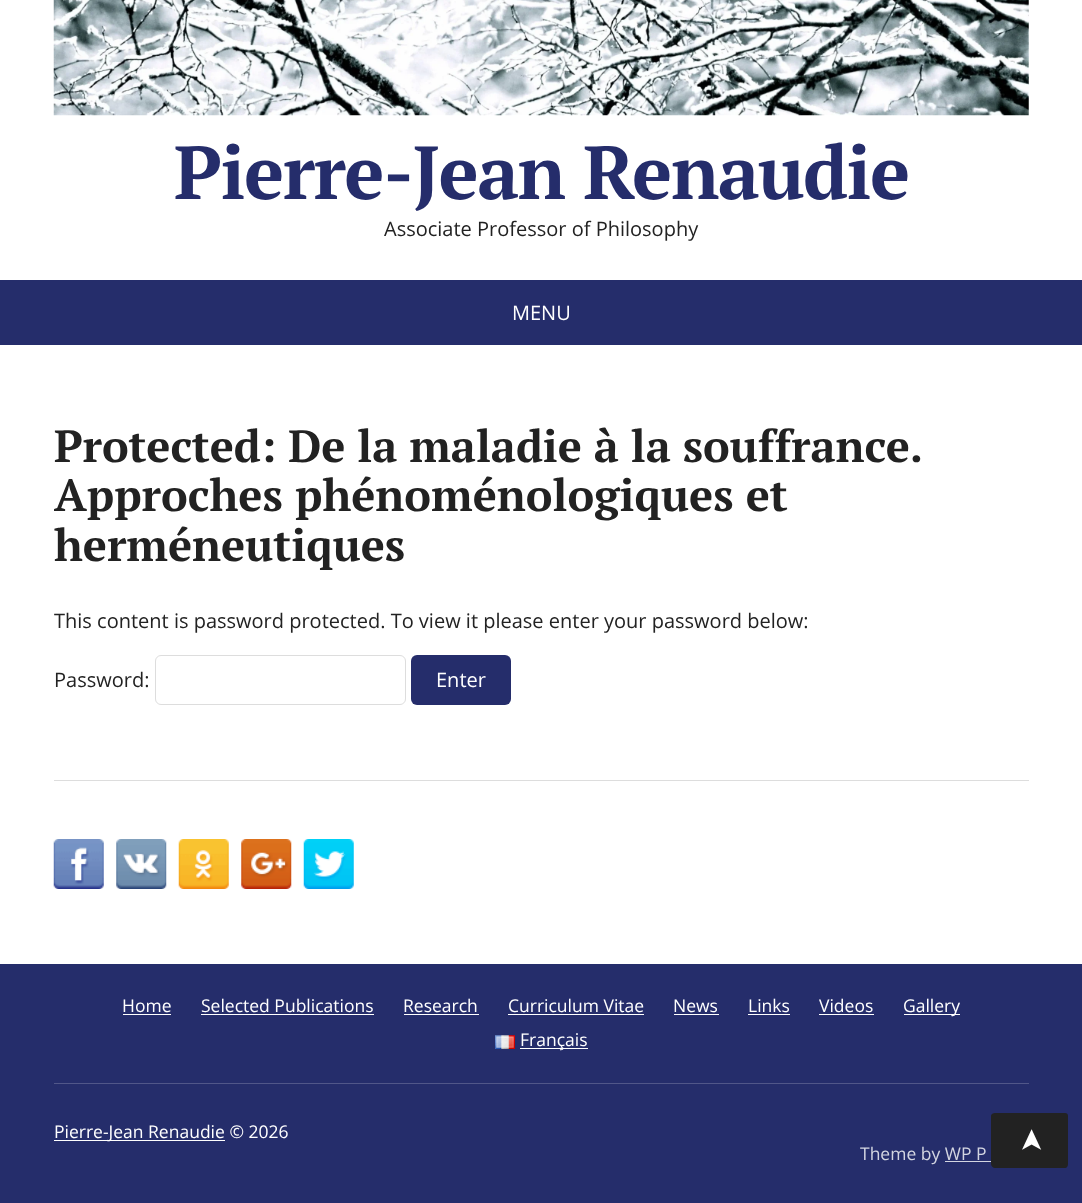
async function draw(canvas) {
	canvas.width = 1082;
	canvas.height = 1203;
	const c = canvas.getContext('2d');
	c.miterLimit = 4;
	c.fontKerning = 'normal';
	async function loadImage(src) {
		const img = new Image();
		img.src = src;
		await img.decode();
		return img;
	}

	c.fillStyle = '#fff';
	c.fillRect(0, 0, 1082, 1203);
	c.drawImage(await loadImage('img1.png'), 53, 0, 976, 116);
	c.letterSpacing = '-1.5px';
	c.font = 'bold 75px PT Serif';
	c.fillStyle = '#252d6b';
	c.fillText('Pierre-Jean Renaudie', 174, 199);
	c.letterSpacing = '0px';
	c.font = '20px Open Sans';
	c.fillStyle = '#222';
	c.fillText('Associate Professor of Philosophy', 384, 236);
	c.fillStyle = '#252d6b';
	c.fillRect(0, 280, 1082, 65);
	c.fillStyle = '#fff';
	c.fillText('MENU', 512, 320);
	c.wordSpacing = '-0.25px';
	c.font = 'bold 45px PT Serif';
	c.fillStyle = '#222';
	c.fillText('Protected: De la maladie à la souffrance.', 54, 462);
	c.wordSpacing = '0px';
	c.fillText('Approches phénoménologiques et', 54, 511);
	c.fillText('herméneutiques', 54, 561);
	c.font = '20px Open Sans';
	c.fillText('This content is password protected. To view it please enter your password below:', 54, 628);
	c.fillText('Password:', 54, 687);
	c.beginPath();
	c.roundRect(155.5, 655.5, 250, 49, 5.5);
	c.strokeStyle = '#ddd';
	c.stroke();
	c.fillStyle = '#252d6b';
	c.beginPath();
	c.roundRect(411, 655, 100, 50, 6);
	c.fill();
	c.fillStyle = '#fff';
	c.fillText('Enter', 436, 687);
	c.fillStyle = '#ddd';
	c.fillRect(54, 780, 975, 1);
	c.drawImage(await loadImage('img2.png'), 53, 839, 51, 50);
	c.drawImage(await loadImage('img3.png'), 116, 839, 51, 50);
	c.drawImage(await loadImage('img4.png'), 178, 839, 51, 50);
	c.drawImage(await loadImage('img5.png'), 241, 839, 51, 50);
	c.drawImage(await loadImage('img6.png'), 303, 839, 51, 50);
	c.fillStyle = '#252d6b';
	c.fillRect(0, 964, 1082, 239);
	c.fillStyle = '#515789';
	c.fillRect(54, 1083, 975, 1);
	c.font = '17.5px Open Sans';
	c.fillStyle = '#fff';
	c.fillText('Home', 122, 1012);
	c.fillRect(123, 1014, 48, 1);
	c.fillText('Selected Publications', 201, 1012);
	c.fillRect(201, 1014, 173, 1);
	c.fillText('Research', 403, 1012);
	c.fillRect(404, 1014, 75, 1);
	c.fillText('Curriculum Vitae', 508, 1012);
	c.fillRect(508, 1014, 136, 1);
	c.fillText('News', 673, 1012);
	c.fillRect(674, 1014, 45, 1);
	c.fillText('Links', 748, 1012);
	c.fillRect(748, 1014, 42, 1);
	c.fillText('Videos', 819, 1012);
	c.fillRect(819, 1014, 55, 1);
	c.fillRect(904, 1014, 56, 1);
	c.fillText('Gallery', 903, 1012);
	c.drawImage(await loadImage('img7.png'), 495, 1035, 20, 14);
	c.fillRect(520, 1048, 68, 1);
	c.fillText('Français', 520, 1046);
	c.fillRect(54, 1140, 171, 1);
	c.fillText('Pierre-Jean Renaudie © 2026', 54, 1138);
	c.fillStyle = '#d3d5e1';
	c.fillText('Theme by WP P', 860, 1160);
	c.fillRect(945, 1161, 46, 1);
	c.fillStyle = '#222';
	c.beginPath();
	c.moveTo(991, 1164);
	c.lineTo(991, 1116);
	c.bezierCurveTo(991, 1114, 993, 1113, 995, 1113);
	c.lineTo(1065, 1113);
	c.bezierCurveTo(1067, 1113, 1068, 1114, 1068, 1116);
	c.lineTo(1068, 1164);
	c.bezierCurveTo(1068, 1166, 1067, 1168, 1065, 1168);
	c.lineTo(995, 1168);
	c.bezierCurveTo(993, 1168, 991, 1166, 991, 1164);
	c.closePath();
	c.fill();
	c.font = '30px DejaVu Sans';
	c.fillStyle = '#fff';
	c.save();
	c.translate(1041, 1153);
	c.rotate(-90 * Math.PI / 180);
	c.fillText('➤', 0, 0);
	c.restore();
}

draw(document.querySelector('canvas'));
